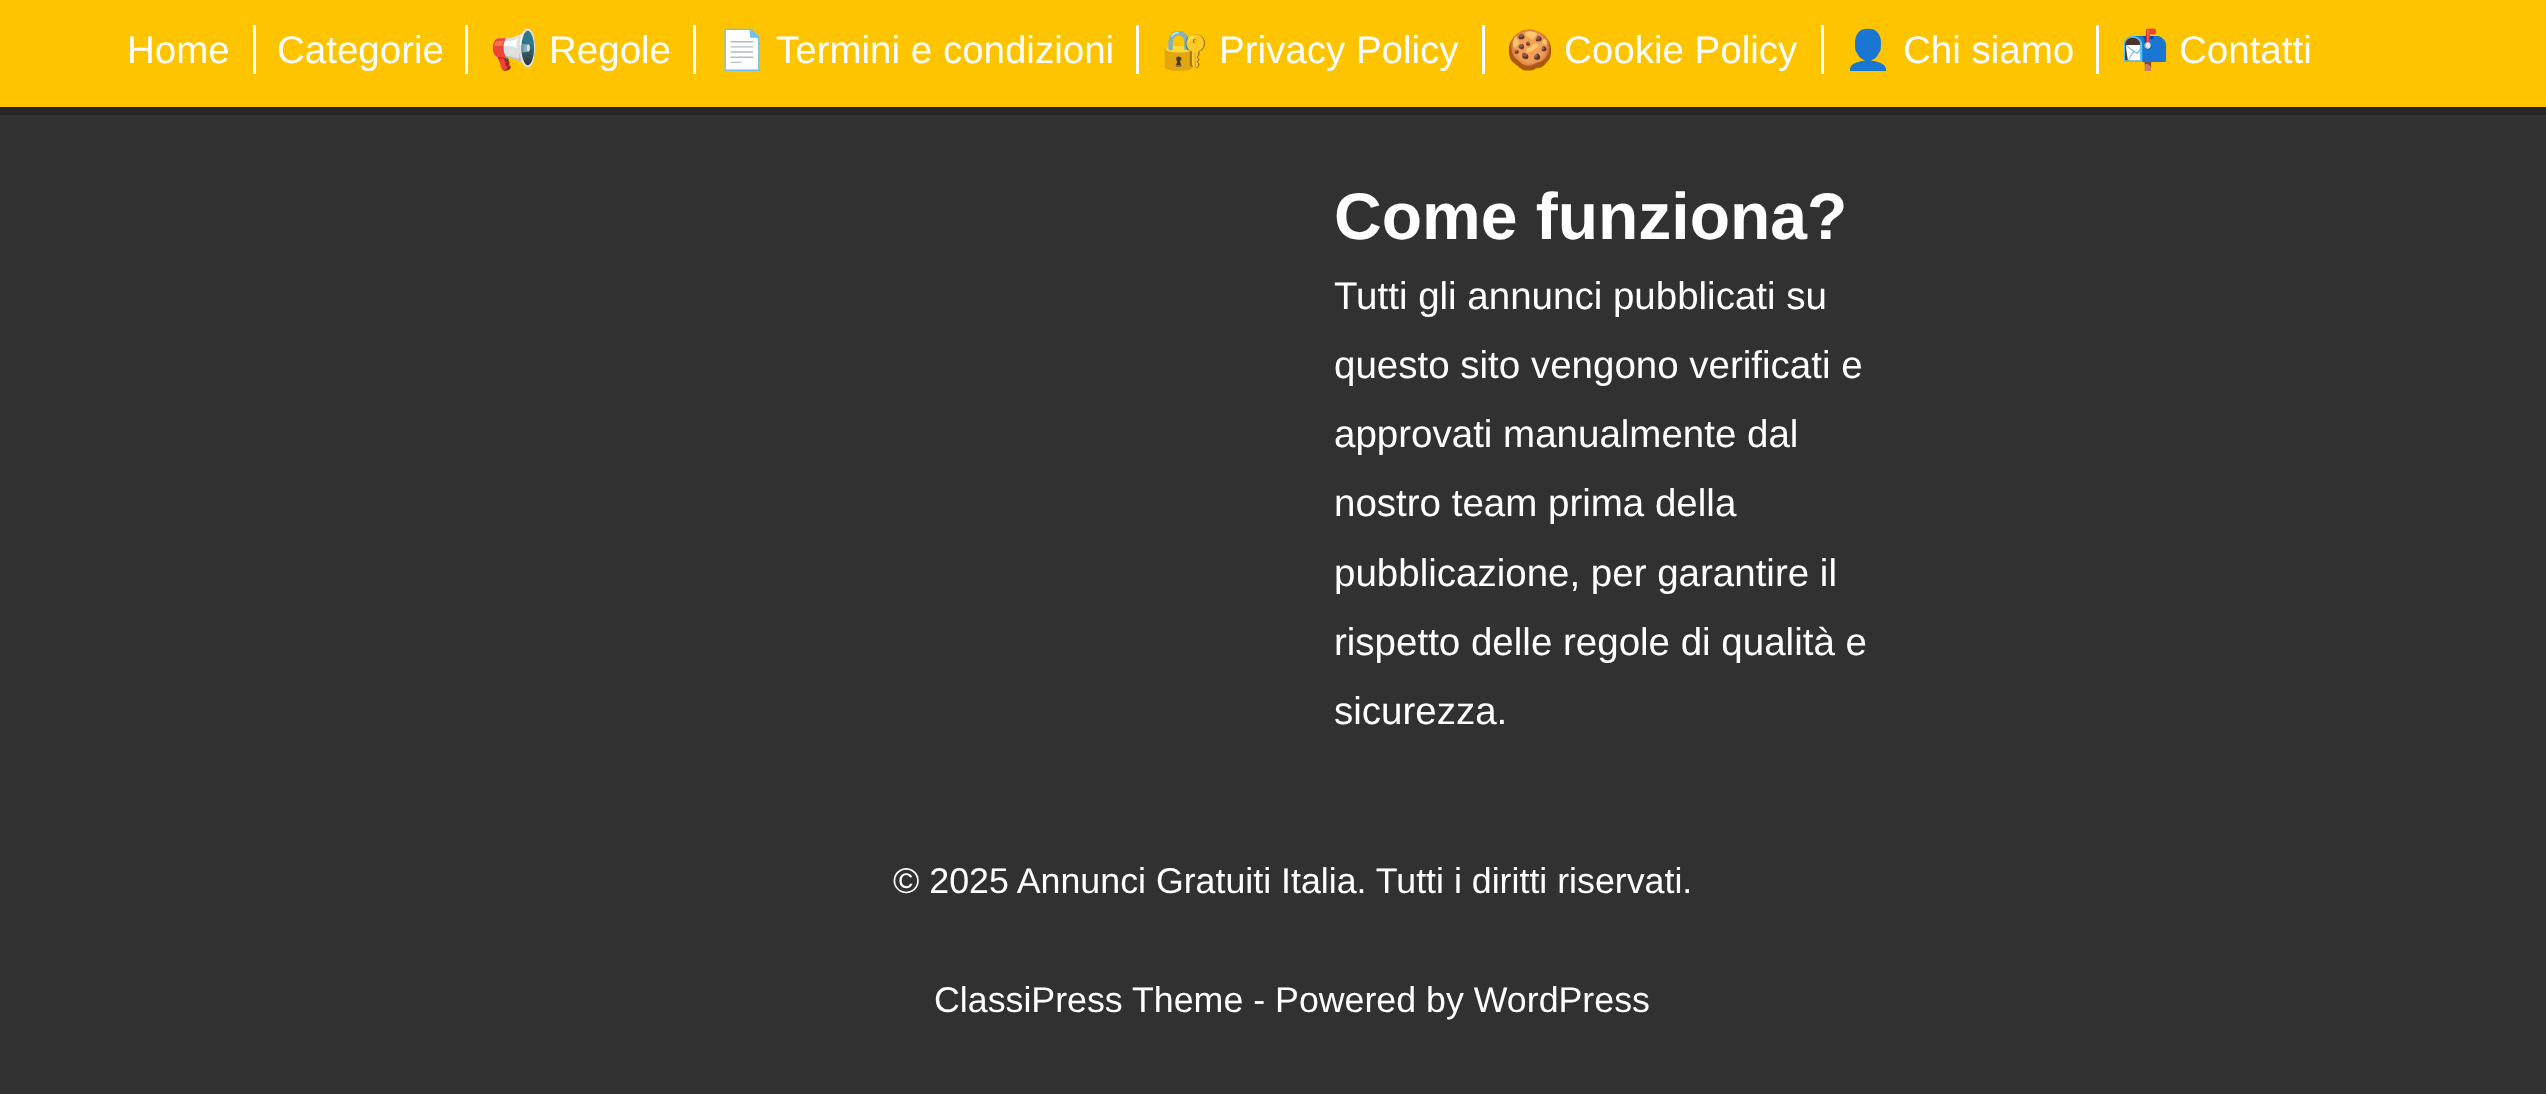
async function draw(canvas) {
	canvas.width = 2546;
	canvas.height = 1094;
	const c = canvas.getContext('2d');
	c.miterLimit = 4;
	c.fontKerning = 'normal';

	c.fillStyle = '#313131';
	c.fillRect(0, 0, 2546, 1094);
	c.fillStyle = '#ffc400';
	c.fillRect(0, 0, 2546, 107);
	c.font = '38.5px Liberation Sans';
	c.fillStyle = '#fff';
	c.fillText('Home', 127, 63);
	c.fillRect(253, 25, 3, 49);
	c.fillText('Categorie', 277, 63);
	c.fillRect(465, 25, 3, 49);
	c.font = '38.5px Noto Color Emoji';
	c.fillText('📢', 490, 63);
	c.font = '38.5px Liberation Sans';
	c.fillText('Regole', 549, 63);
	c.fillRect(693, 25, 3, 49);
	c.font = '38.5px Noto Color Emoji';
	c.fillText('📄', 718, 63);
	c.font = '38.5px Liberation Sans';
	c.fillText('Termini e condizioni', 776, 63);
	c.fillRect(1136, 25, 3, 49);
	c.font = '38.5px Noto Color Emoji';
	c.fillText('🔐', 1161, 63);
	c.font = '38.5px Liberation Sans';
	c.fillText('Privacy Policy', 1219, 63);
	c.fillRect(1482, 25, 3, 49);
	c.font = '38.5px Noto Color Emoji';
	c.fillText('🍪', 1506, 63);
	c.font = '38.5px Liberation Sans';
	c.fillText('Cookie Policy', 1564, 63);
	c.fillRect(1821, 25, 3, 49);
	c.font = '38.5px Noto Color Emoji';
	c.fillText('👤', 1844, 63);
	c.font = '38.5px Liberation Sans';
	c.fillText('Chi siamo', 1903, 63);
	c.fillRect(2096, 25, 3, 49);
	c.font = '38.5px Noto Color Emoji';
	c.fillText('📬', 2121, 63);
	c.font = '38.5px Liberation Sans';
	c.fillText('Contatti', 2179, 63);
	c.fillStyle = '#252525';
	c.fillRect(0, 107, 2546, 8);
	c.font = 'bold 66px Liberation Sans';
	c.fillStyle = '#fff';
	c.fillText('Come funziona?', 1334, 239);
	c.font = '38.5px Liberation Sans';
	for (const [text, x, y] of [
		['Tutti gli annunci pubblicati su', 1334, 309],
		['questo sito vengono verificati e', 1334, 378],
		['approvati manualmente dal', 1334, 447],
		['nostro team prima della', 1334, 516],
		['pubblicazione, per garantire il', 1334, 586],
		['rispetto delle regole di qualità e', 1334, 655],
		['sicurezza.', 1334, 724],
	]) {
		c.fillText(text, x, y);
	}
	c.font = '35.75px Liberation Sans';
	c.fillText('© 2025 Annunci Gratuiti Italia. Tutti i diritti riservati.', 893, 893);
	c.fillText('ClassiPress Theme - Powered by WordPress', 934, 1012);
}

draw(document.querySelector('canvas'));
